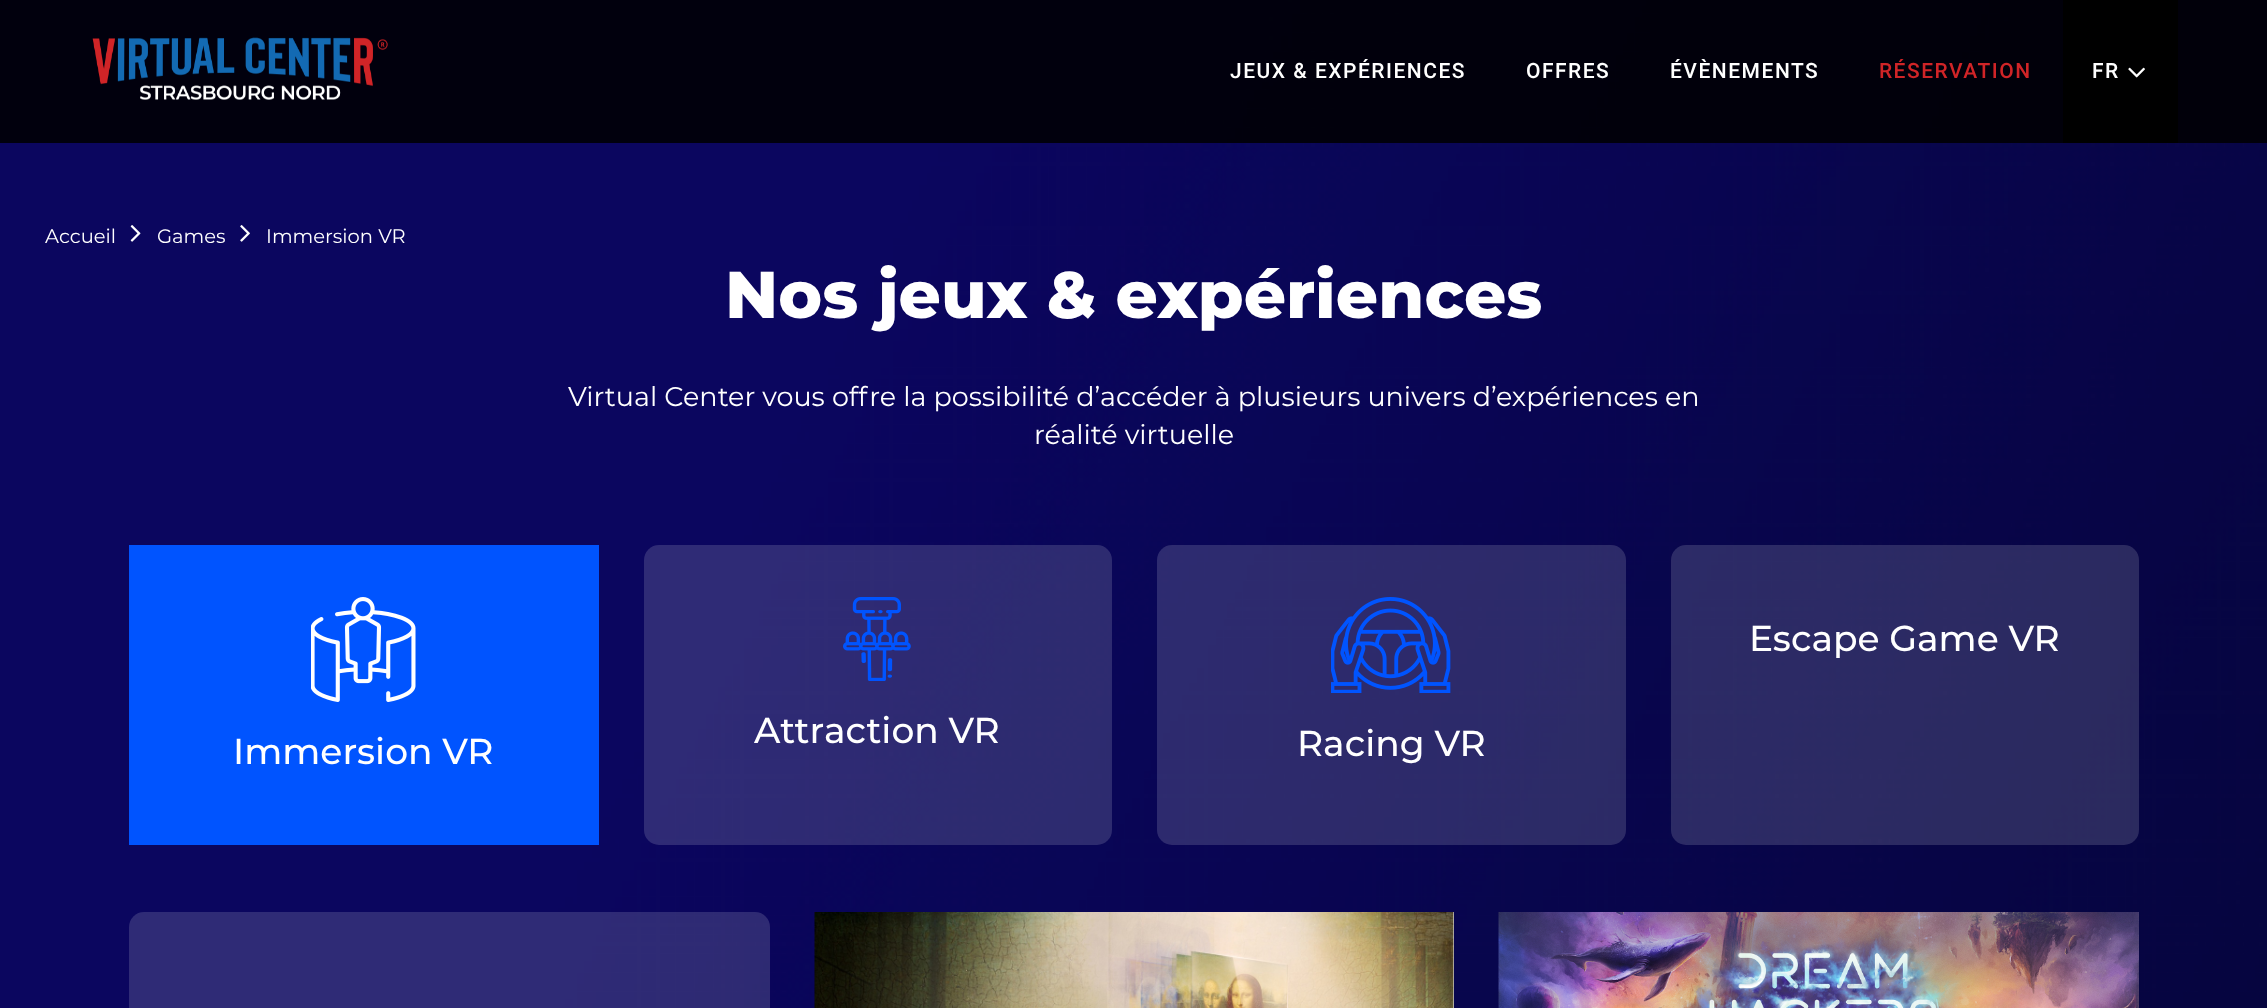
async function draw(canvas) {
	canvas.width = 2267;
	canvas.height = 1008;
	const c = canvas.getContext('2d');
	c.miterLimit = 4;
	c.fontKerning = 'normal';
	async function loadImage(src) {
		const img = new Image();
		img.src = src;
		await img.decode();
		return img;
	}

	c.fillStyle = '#fff';
	c.fillRect(0, 0, 2267, 1008);
	c.drawImage(await loadImage('img3.png'), 0, 0, 2267, 1008);
	c.fillStyle = '#000000db';
	c.fillRect(0, 0, 2267, 143);
	c.drawImage(await loadImage('img1.png'), 92, 37, 296, 63);
	c.letterSpacing = '1.5px';
	c.font = '500 21px Roboto';
	c.fillStyle = '#fff';
	for (const [text, x, y] of [
		['JEUX & EXPÉRIENCES', 1230, 78],
		['OFFRES', 1526, 78],
		['ÉVÈNEMENTS', 1670, 78],
	]) {
		c.fillText(text, x, y);
	}
	c.fillStyle = '#d02427';
	c.fillText('RÉSERVATION', 1879, 78);
	c.fillStyle = '#000';
	c.fillRect(2063, 0, 115, 143);
	c.fillStyle = '#fff';
	c.fillText('FR', 2092, 78);
	c.drawImage(await loadImage('img2.png'), 2128, 67, 17, 11);
	c.letterSpacing = '0px';
	c.font = '19.5px Montserrat';
	c.fillText('Accueil', 45, 243);
	c.drawImage(await loadImage('img4.png'), 130, 225, 11, 17);
	c.fillText('Games', 157, 243);
	c.drawImage(await loadImage('img5.png'), 240, 225, 10, 17);
	c.fillText('Immersion VR', 266, 243);
	c.font = '800 66px Montserrat';
	c.fillText('Nos jeux & expériences', 725, 318);
	c.font = '27px Montserrat';
	c.fillText('Virtual Center vous offre la possibilité d’accéder à plusieurs univers d’expériences en', 568, 406);
	c.fillText('réalité virtuelle', 1034, 444);
	c.fillStyle = '#ffffff26';
	c.beginPath();
	c.roundRect(1671, 545, 468, 300, 15);
	c.fill();
	c.font = '500 36px Montserrat';
	c.fillStyle = '#fff';
	c.fillText('Escape Game VR', 1749, 651);
	c.fillStyle = '#0054ff';
	c.fillRect(129, 545, 470, 300);
	c.drawImage(await loadImage('img6.png'), 311, 597, 105, 105);
	c.fillStyle = '#fff';
	c.fillText('Immersion VR', 233, 764);
	c.fillStyle = '#ffffff26';
	c.beginPath();
	c.roundRect(644, 545, 468, 300, 15);
	c.fill();
	c.drawImage(await loadImage('img7.png'), 843, 597, 68, 84);
	c.fillStyle = '#fff';
	c.fillText('Attraction VR', 754, 743);
	c.fillStyle = '#ffffff26';
	c.beginPath();
	c.roundRect(1157, 545, 469, 300, 15);
	c.fill();
	c.drawImage(await loadImage('img8.png'), 1331, 597, 120, 96);
	c.fillStyle = '#fff';
	c.fillText('Racing VR', 1297, 756);
	c.fillStyle = '#ffffff26';
	c.beginPath();
	c.roundRect(129, 912, 641, 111, 15);
	c.fill();
	c.fillStyle = '#fff';
	c.fillRect(1453, 912, 1, 96);
	c.drawImage(await loadImage('img9.png'), 814, 912, 640, 96);
	c.drawImage(await loadImage('img10.png'), 1498, 912, 641, 96);
}

draw(document.querySelector('canvas'));
